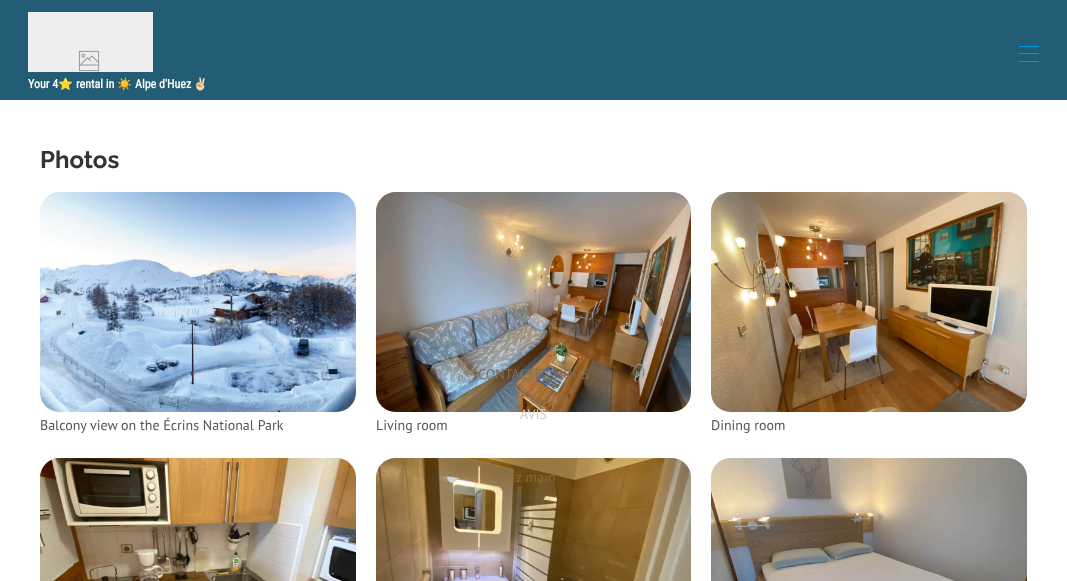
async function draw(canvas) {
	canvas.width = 1067;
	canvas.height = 581;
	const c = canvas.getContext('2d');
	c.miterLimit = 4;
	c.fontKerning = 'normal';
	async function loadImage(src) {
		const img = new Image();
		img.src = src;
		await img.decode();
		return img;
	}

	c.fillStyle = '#fff';
	c.fillRect(0, 0, 1067, 581);
	for (const [x, y, w, h, color] of [
		[0, 0, 1067, 100, '#225c75'],
		[1019, 46, 20, 1, '#0098de'],
		[1019, 53, 20, 1, '#0098de'],
		[1019, 61, 20, 1, '#0098de'],
		[28, 12, 125, 60, '#eee'],
	]) {
		c.fillStyle = color;
		c.fillRect(x, y, w, h);
	}
	c.drawImage(await loadImage('img1.png'), 78, 50, 22, 22);
	c.font = 'bold 12px Roboto Condensed';
	c.fillStyle = '#fff';
	c.fillText('Your 4', 28, 88);
	c.font = 'bold 12px Noto Color Emoji';
	c.fillText('⭐️', 58, 88);
	c.font = 'bold 12px Roboto Condensed';
	c.fillText('rental in', 76, 88);
	c.font = 'bold 12px Noto Color Emoji';
	c.fillText('☀️', 117, 88);
	c.font = 'bold 12px Roboto Condensed';
	c.fillText('Alpe d\'Huez', 135, 88);
	c.font = 'bold 12px Noto Color Emoji';
	c.fillText('✌🏻', 193, 88);
	c.drawImage(await loadImage('img3.png'), 376, 192, 315, 220);
	c.font = '14px PT Sans';
	c.fillStyle = '#7f705f';
	c.fillText('CONTACTEZ-NOUS', 478, 379);
	c.fillStyle = '#d8cec1';
	c.fillText('AVIS', 520, 419);
	c.drawImage(await loadImage('img6.png'), 376, 458, 315, 123);
	c.fillStyle = '#886835';
	c.fillText('z main', 516, 482);
	c.font = 'bold 24px Raleway';
	c.fillStyle = '#333';
	c.fillText('Photos', 40, 168);
	c.drawImage(await loadImage('img2.png'), 40, 192, 316, 220);
	c.font = '14px PT Sans';
	c.fillStyle = '#555';
	c.fillText('Balcony view on the Écrins National Park', 40, 430);
	c.fillText('Living room', 376, 430);
	c.drawImage(await loadImage('img4.png'), 711, 192, 316, 220);
	c.fillText('Dining room', 711, 430);
	c.drawImage(await loadImage('img5.png'), 40, 458, 316, 123);
	c.drawImage(await loadImage('img7.png'), 711, 458, 316, 123);
}

draw(document.querySelector('canvas'));
